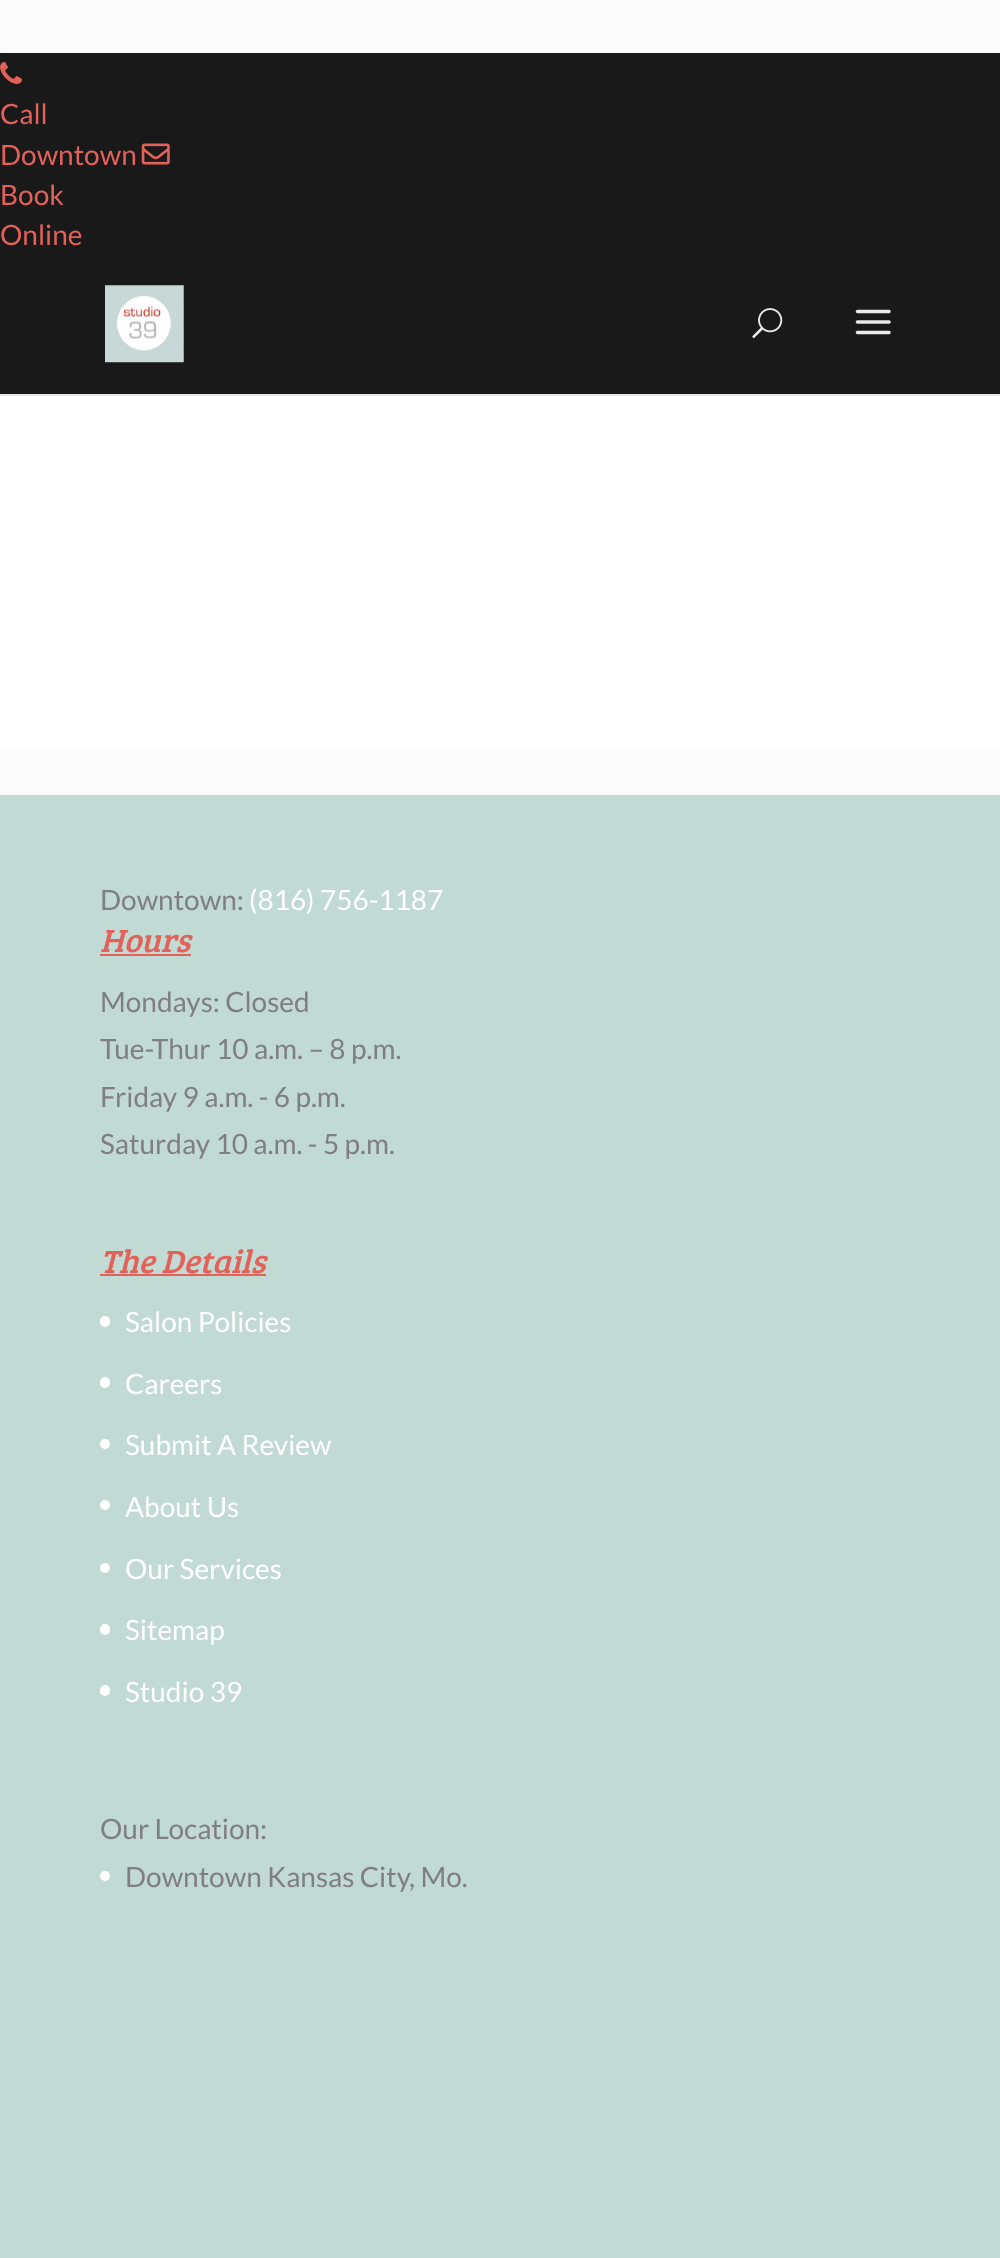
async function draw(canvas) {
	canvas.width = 1000;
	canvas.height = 2258;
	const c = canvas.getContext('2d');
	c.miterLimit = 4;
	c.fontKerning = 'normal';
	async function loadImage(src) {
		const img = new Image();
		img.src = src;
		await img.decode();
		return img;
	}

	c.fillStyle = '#fcfcfc';
	c.fillRect(0, 0, 1000, 2258);
	c.fillStyle = '#e6e6e6';
	c.fillRect(0, 394, 1000, 2);
	c.fillStyle = '#191919';
	c.fillRect(0, 53, 1000, 341);
	c.drawImage(await loadImage('img1.png'), 0, 62, 22, 22);
	c.font = '28px Lato';
	c.fillStyle = '#e2625a';
	c.fillText('Call', 0, 124);
	c.fillText('Downtown', 0, 165);
	c.drawImage(await loadImage('img2.png'), 141, 143, 29, 22);
	c.fillText('Book', 0, 205);
	c.fillText('Online', 0, 245);
	c.drawImage(await loadImage('img3.png'), 105, 285, 79, 78);
	c.drawImage(await loadImage('img4.png'), 752, 308, 31, 30);
	c.drawImage(await loadImage('img5.png'), 855, 309, 36, 26);
	c.fillStyle = '#fff';
	c.fillRect(0, 396, 1000, 351);
	c.fillStyle = '#c1dad4';
	c.fillRect(0, 795, 1000, 1463);
	c.fillStyle = '#7f7f7f';
	c.fillText('Downtown:', 100, 910);
	c.fillStyle = '#fff';
	c.fillText('(816) 756-1187', 249, 910);
	c.font = 'italic 33.25px Bree Serif';
	c.fillStyle = '#e2625a';
	c.fillText('Hours', 100, 952);
	c.fillRect(100, 954, 91, 2);
	c.font = '28px Lato';
	c.fillStyle = '#7f7f7f';
	for (const [text, x, y] of [
		['Mondays: Closed', 100, 1012],
		['Tue-Thur 10 a.m. – 8 p.m.', 100, 1059],
		['Friday 9 a.m. - 6 p.m.', 100, 1107],
		['Saturday 10 a.m. - 5 p.m.', 100, 1154],
	]) {
		c.fillText(text, x, y);
	}
	c.font = 'italic 33.25px Bree Serif';
	c.fillStyle = '#e2625a';
	c.fillText('The Details', 100, 1273);
	c.fillRect(100, 1274, 166, 2);
	c.fillStyle = '#fff';
	c.beginPath();
	c.roundRect(100, 1316, 10, 11, 5);
	c.fill();
	c.font = '28px Lato';
	c.fillText('Salon Policies', 125, 1332);
	c.beginPath();
	c.roundRect(100, 1377, 10, 11, 5);
	c.fill();
	c.fillText('Careers', 125, 1394);
	c.beginPath();
	c.arc(105, 1444, 5, 0, 2 * Math.PI);
	c.fill();
	c.fillText('Submit A Review', 125, 1455);
	c.beginPath();
	c.arc(105, 1505, 5, 0, 2 * Math.PI);
	c.fill();
	c.fillText('About Us', 125, 1517);
	c.beginPath();
	c.arc(105, 1568, 5, 0, 2 * Math.PI);
	c.fill();
	c.fillText('Our Services', 125, 1579);
	c.beginPath();
	c.roundRect(100, 1624, 10, 11, 5);
	c.fill();
	c.fillText('Sitemap', 125, 1640);
	c.beginPath();
	c.roundRect(100, 1685, 10, 11, 5);
	c.fill();
	c.fillText('Studio 39', 125, 1702);
	c.fillStyle = '#7f7f7f';
	c.fillText('Our Location:', 100, 1839);
	c.fillStyle = '#fff';
	c.beginPath();
	c.arc(105, 1876, 5, 0, 2 * Math.PI);
	c.fill();
	c.fillStyle = '#7f7f7f';
	c.fillText('Downtown Kansas City, Mo.', 125, 1887);
}

draw(document.querySelector('canvas'));
